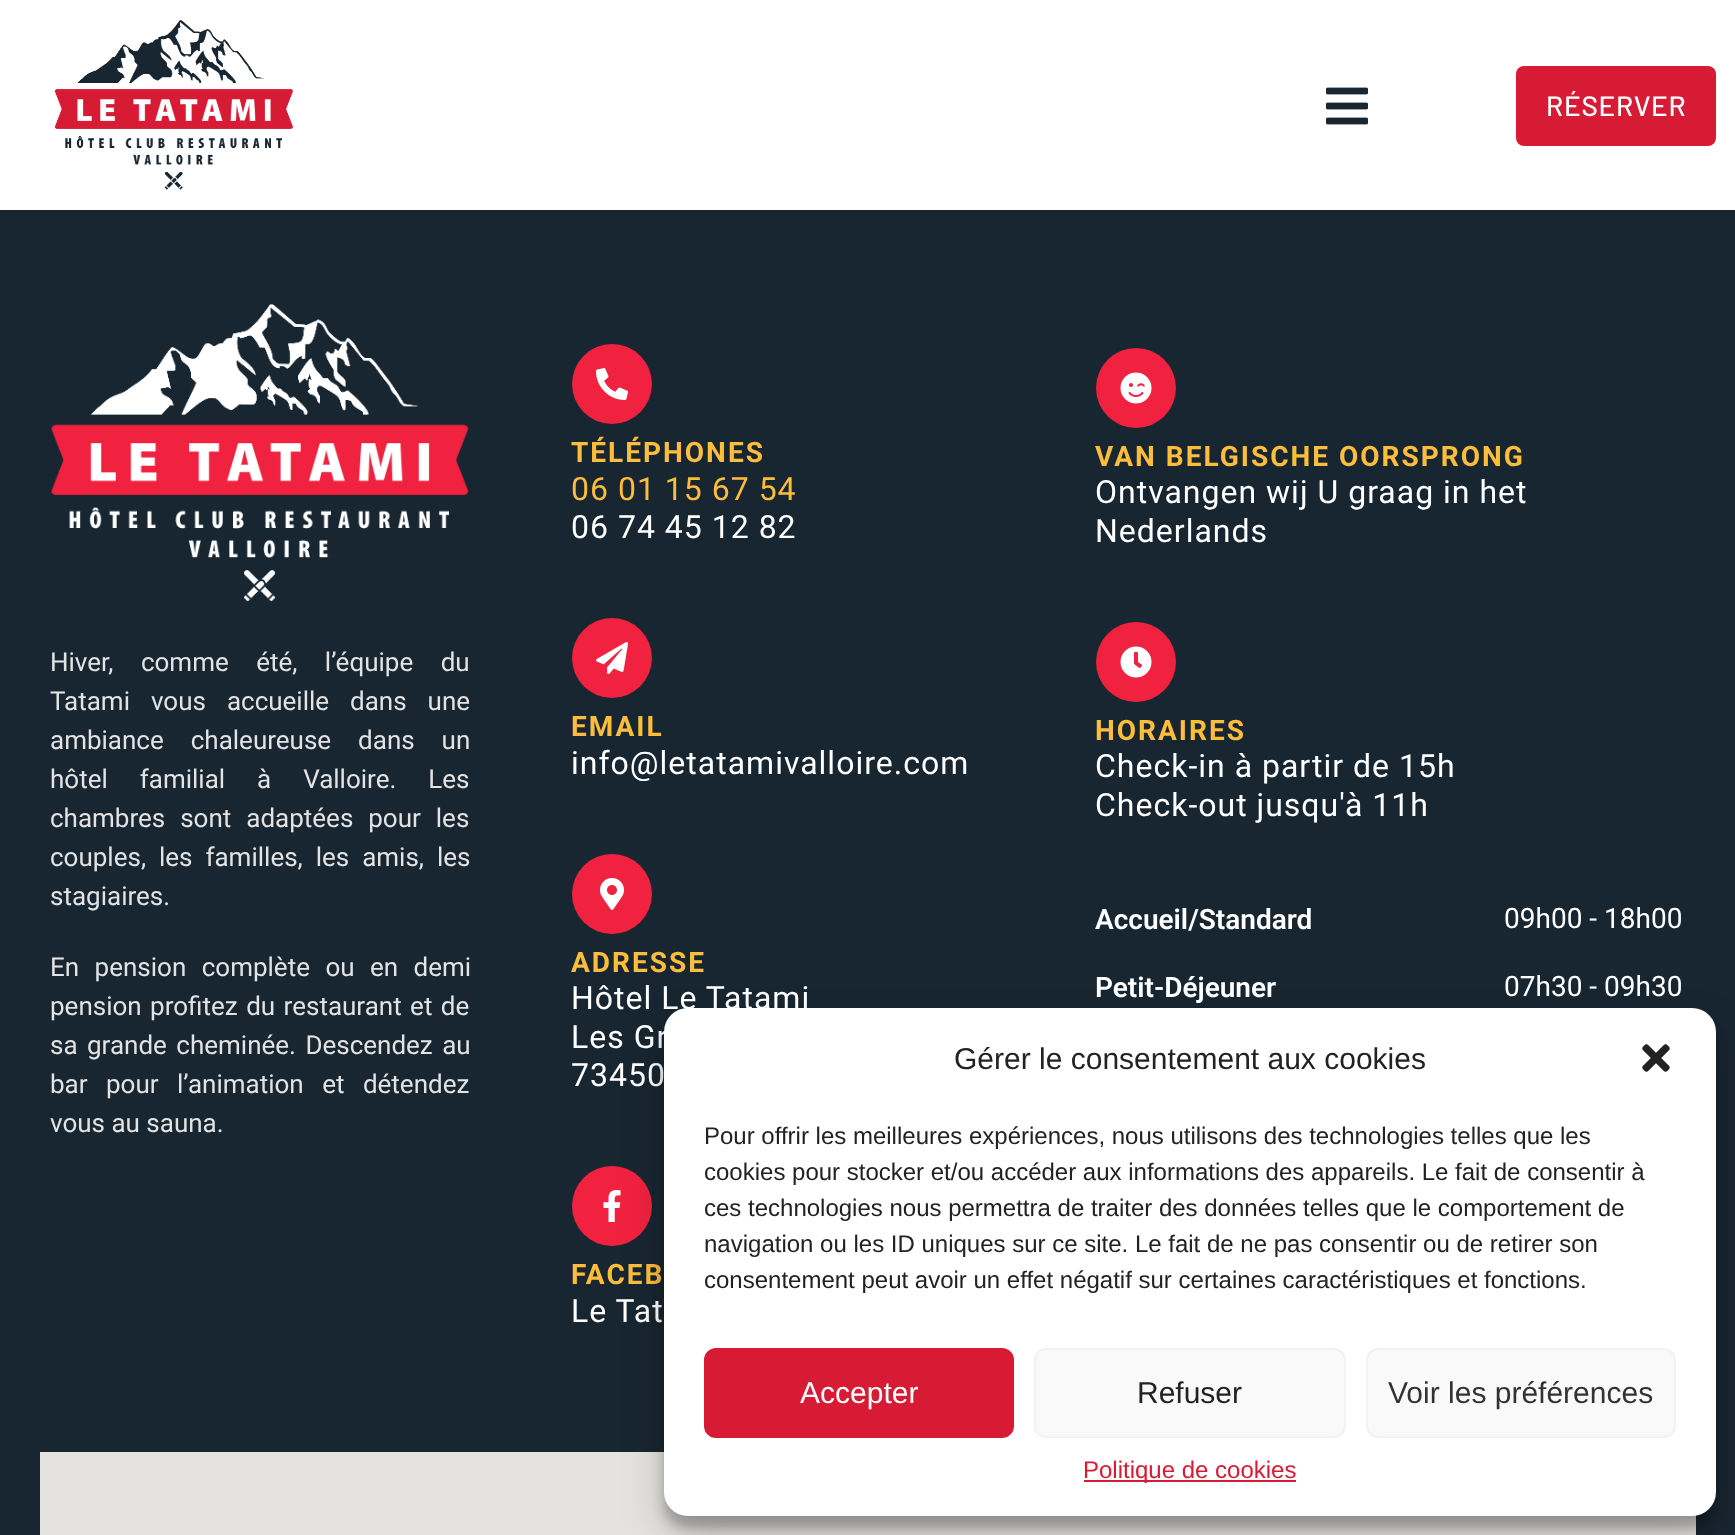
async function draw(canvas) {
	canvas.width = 1735;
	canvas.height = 1535;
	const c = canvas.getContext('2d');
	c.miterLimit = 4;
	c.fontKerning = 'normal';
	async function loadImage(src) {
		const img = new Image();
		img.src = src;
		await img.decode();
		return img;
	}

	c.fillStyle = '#182631';
	c.fillRect(0, 0, 1735, 1535);
	c.fillStyle = '#fff';
	c.fillRect(0, 0, 1735, 210);
	c.drawImage(await loadImage('img1.png'), 54, 20, 240, 170);
	c.drawImage(await loadImage('img2.png'), 1326, 87, 42, 38);
	c.fillStyle = '#d71b35';
	c.beginPath();
	c.roundRect(1516, 66, 200, 80, 8);
	c.fill();
	c.letterSpacing = '0.75px';
	c.font = '500 28px Barlow';
	c.fillStyle = '#fff';
	c.fillText('RÉSERVER', 1546, 116);
	c.drawImage(await loadImage('img3.png'), 51, 304, 418, 298);
	c.letterSpacing = '0px';
	c.wordSpacing = '21px';
	c.font = '26px Roboto';
	c.fillStyle = '#e3e3e3';
	c.fillText('Hiver, comme été, l’équipe du', 50, 671);
	c.wordSpacing = '14.5px';
	c.fillText('Tatami vous accueille dans une', 50, 710);
	c.wordSpacing = '20.5px';
	c.fillText('ambiance chaleureuse dans un', 50, 749);
	c.wordSpacing = '25.5px';
	c.fillText('hôtel familial à Valloire. Les', 50, 788);
	c.wordSpacing = '8.5px';
	c.fillText('chambres sont adaptées pour les', 50, 827);
	c.wordSpacing = '6.5px';
	c.fillText('couples, les familles, les amis, les', 50, 866);
	c.wordSpacing = '0px';
	c.fillText('stagiaires.', 50, 905);
	c.wordSpacing = '9px';
	c.fillText('En pension complète ou en demi', 50, 976);
	c.wordSpacing = '2px';
	c.fillText('pension profitez du restaurant et de', 50, 1015);
	c.wordSpacing = '3px';
	c.fillText('sa grande cheminée. Descendez au', 50, 1054);
	c.wordSpacing = '12px';
	c.fillText('bar pour l’animation et détendez', 50, 1093);
	c.wordSpacing = '0px';
	c.fillText('vous au sauna.', 50, 1132);
	c.fillStyle = '#f0223f';
	c.beginPath();
	c.arc(612, 384, 40, 0, 2 * Math.PI);
	c.fill();
	c.drawImage(await loadImage('img4.png'), 596, 368, 32, 32);
	c.letterSpacing = '2px';
	c.font = 'bold 28px Roboto';
	c.fillStyle = '#febd3b';
	c.fillText('TÉLÉPHONES', 571, 462);
	c.letterSpacing = '1px';
	c.font = '32px Roboto';
	c.fillText('06 01 15 67 54', 571, 500);
	c.fillStyle = '#fff';
	c.fillText('06 74 45 12 82', 571, 538);
	c.fillStyle = '#f0223f';
	c.beginPath();
	c.arc(612, 658, 40, 0, 2 * Math.PI);
	c.fill();
	c.drawImage(await loadImage('img5.png'), 596, 642, 33, 32);
	c.letterSpacing = '2px';
	c.font = 'bold 28px Roboto';
	c.fillStyle = '#febd3b';
	c.fillText('EMAIL', 571, 736);
	c.letterSpacing = '1px';
	c.font = '32px Roboto';
	c.fillStyle = '#fff';
	c.fillText('info@letatamivalloire.com', 571, 774);
	c.fillStyle = '#f0223f';
	c.beginPath();
	c.arc(612, 894, 40, 0, 2 * Math.PI);
	c.fill();
	c.drawImage(await loadImage('img6.png'), 600, 878, 24, 32);
	c.letterSpacing = '2px';
	c.font = 'bold 28px Roboto';
	c.fillStyle = '#febd3b';
	c.fillText('ADRESSE', 571, 972);
	c.letterSpacing = '1px';
	c.font = '32px Roboto';
	c.fillStyle = '#fff';
	for (const [text, x, y] of [
		['Hôtel Le Tatami', 571, 1009],
		['Les Gr', 571, 1048],
		['73450', 571, 1086],
	]) {
		c.fillText(text, x, y);
	}
	c.fillStyle = '#f0223f';
	c.beginPath();
	c.arc(612, 1206, 40, 0, 2 * Math.PI);
	c.fill();
	c.drawImage(await loadImage('img7.png'), 603, 1190, 18, 32);
	c.letterSpacing = '2px';
	c.font = 'bold 28px Roboto';
	c.fillStyle = '#febd3b';
	c.fillText('FACEB', 571, 1284);
	c.letterSpacing = '1px';
	c.font = '32px Roboto';
	c.fillStyle = '#fff';
	c.fillText('Le Tat', 571, 1322);
	c.fillStyle = '#f0223f';
	c.beginPath();
	c.arc(1136, 388, 40, 0, 2 * Math.PI);
	c.fill();
	c.drawImage(await loadImage('img8.png'), 1120, 372, 32, 32);
	c.letterSpacing = '2px';
	c.font = 'bold 28px Roboto';
	c.fillStyle = '#febd3b';
	c.fillText('VAN BELGISCHE OORSPRONG', 1095, 466);
	c.letterSpacing = '1px';
	c.font = '32px Roboto';
	c.fillStyle = '#fff';
	c.fillText('Ontvangen wij U graag in het', 1095, 503);
	c.fillText('Nederlands', 1095, 542);
	c.fillStyle = '#f0223f';
	c.beginPath();
	c.arc(1136, 662, 40, 0, 2 * Math.PI);
	c.fill();
	c.drawImage(await loadImage('img9.png'), 1120, 646, 32, 32);
	c.letterSpacing = '2px';
	c.font = 'bold 28px Roboto';
	c.fillStyle = '#febd3b';
	c.fillText('HORAIRES', 1095, 740);
	c.letterSpacing = '1px';
	c.font = '32px Roboto';
	c.fillStyle = '#fff';
	c.fillText('Check-in à partir de 15h', 1095, 777);
	c.fillText('Check-out jusqu\'à 11h', 1095, 816);
	c.letterSpacing = '0px';
	c.font = '600 28px Roboto';
	c.fillText('Accueil/Standard', 1095, 929);
	c.font = '28px Roboto';
	c.fillText('09h00 - 18h00', 1504, 928);
	c.font = '600 28px Roboto';
	c.fillText('Petit-Déjeuner', 1095, 997);
	c.font = '28px Roboto';
	c.fillText('07h30 - 09h30', 1504, 996);
	c.fillStyle = '#e5e3df';
	c.fillRect(40, 1452, 1656, 83);
	c.fillStyle = '#0000003b';
	c.filter = 'blur(6px)';
	c.beginPath();
	c.roundRect(664, 1020, 1052, 508, 24);
	c.fill();
	c.filter = 'none';
	c.fillStyle = '#00000030';
	c.filter = 'blur(20px)';
	c.beginPath();
	c.roundRect(664, 1028, 1052, 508, 24);
	c.fill();
	c.filter = 'none';
	c.fillStyle = '#fff';
	c.beginPath();
	c.roundRect(664, 1008, 1052, 508, 24);
	c.fill();
	c.font = '30px Liberation Sans';
	c.fillStyle = '#222';
	c.fillText('Gérer le consentement aux cookies', 954, 1069);
	c.drawImage(await loadImage('img10.png'), 1642, 1044, 28, 28);
	c.font = '24px Liberation Sans';
	for (const [text, x, y] of [
		['Pour offrir les meilleures expériences, nous utilisons des technologies telles que les', 704, 1144],
		['cookies pour stocker et/ou accéder aux informations des appareils. Le fait de consentir à', 704, 1180],
		['ces technologies nous permettra de traiter des données telles que le comportement de', 704, 1216],
		['navigation ou les ID uniques sur ce site. Le fait de ne pas consentir ou de retirer son', 704, 1252],
		['consentement peut avoir un effet négatif sur certaines caractéristiques et fonctions.', 704, 1288],
	]) {
		c.fillText(text, x, y);
	}
	c.fillStyle = '#d71b35';
	c.beginPath();
	c.roundRect(705, 1349, 308, 88, 11);
	c.fill();
	c.strokeStyle = '#d71b35';
	c.lineWidth = 2;
	c.stroke();
	c.font = '30px Liberation Sans';
	c.fillStyle = '#fff';
	c.fillText('Accepter', 800, 1403);
	c.fillStyle = '#f9f9f9';
	c.beginPath();
	c.roundRect(1035, 1349, 310, 88, 11);
	c.fill();
	c.strokeStyle = '#f2f2f2';
	c.stroke();
	c.fillStyle = '#222';
	c.fillText('Refuser', 1137, 1403);
	c.fillStyle = '#f9f9f9';
	c.beginPath();
	c.roundRect(1367, 1349, 308, 88, 11);
	c.fill();
	c.stroke();
	c.fillStyle = '#333';
	c.fillText('Voir les préférences', 1388, 1403);
	c.fillStyle = '#d71b35';
	c.fillRect(1084, 1480, 212, 2);
	c.font = '24px Liberation Sans';
	c.fillText('Politique de cookies', 1083, 1478);
}

draw(document.querySelector('canvas'));
